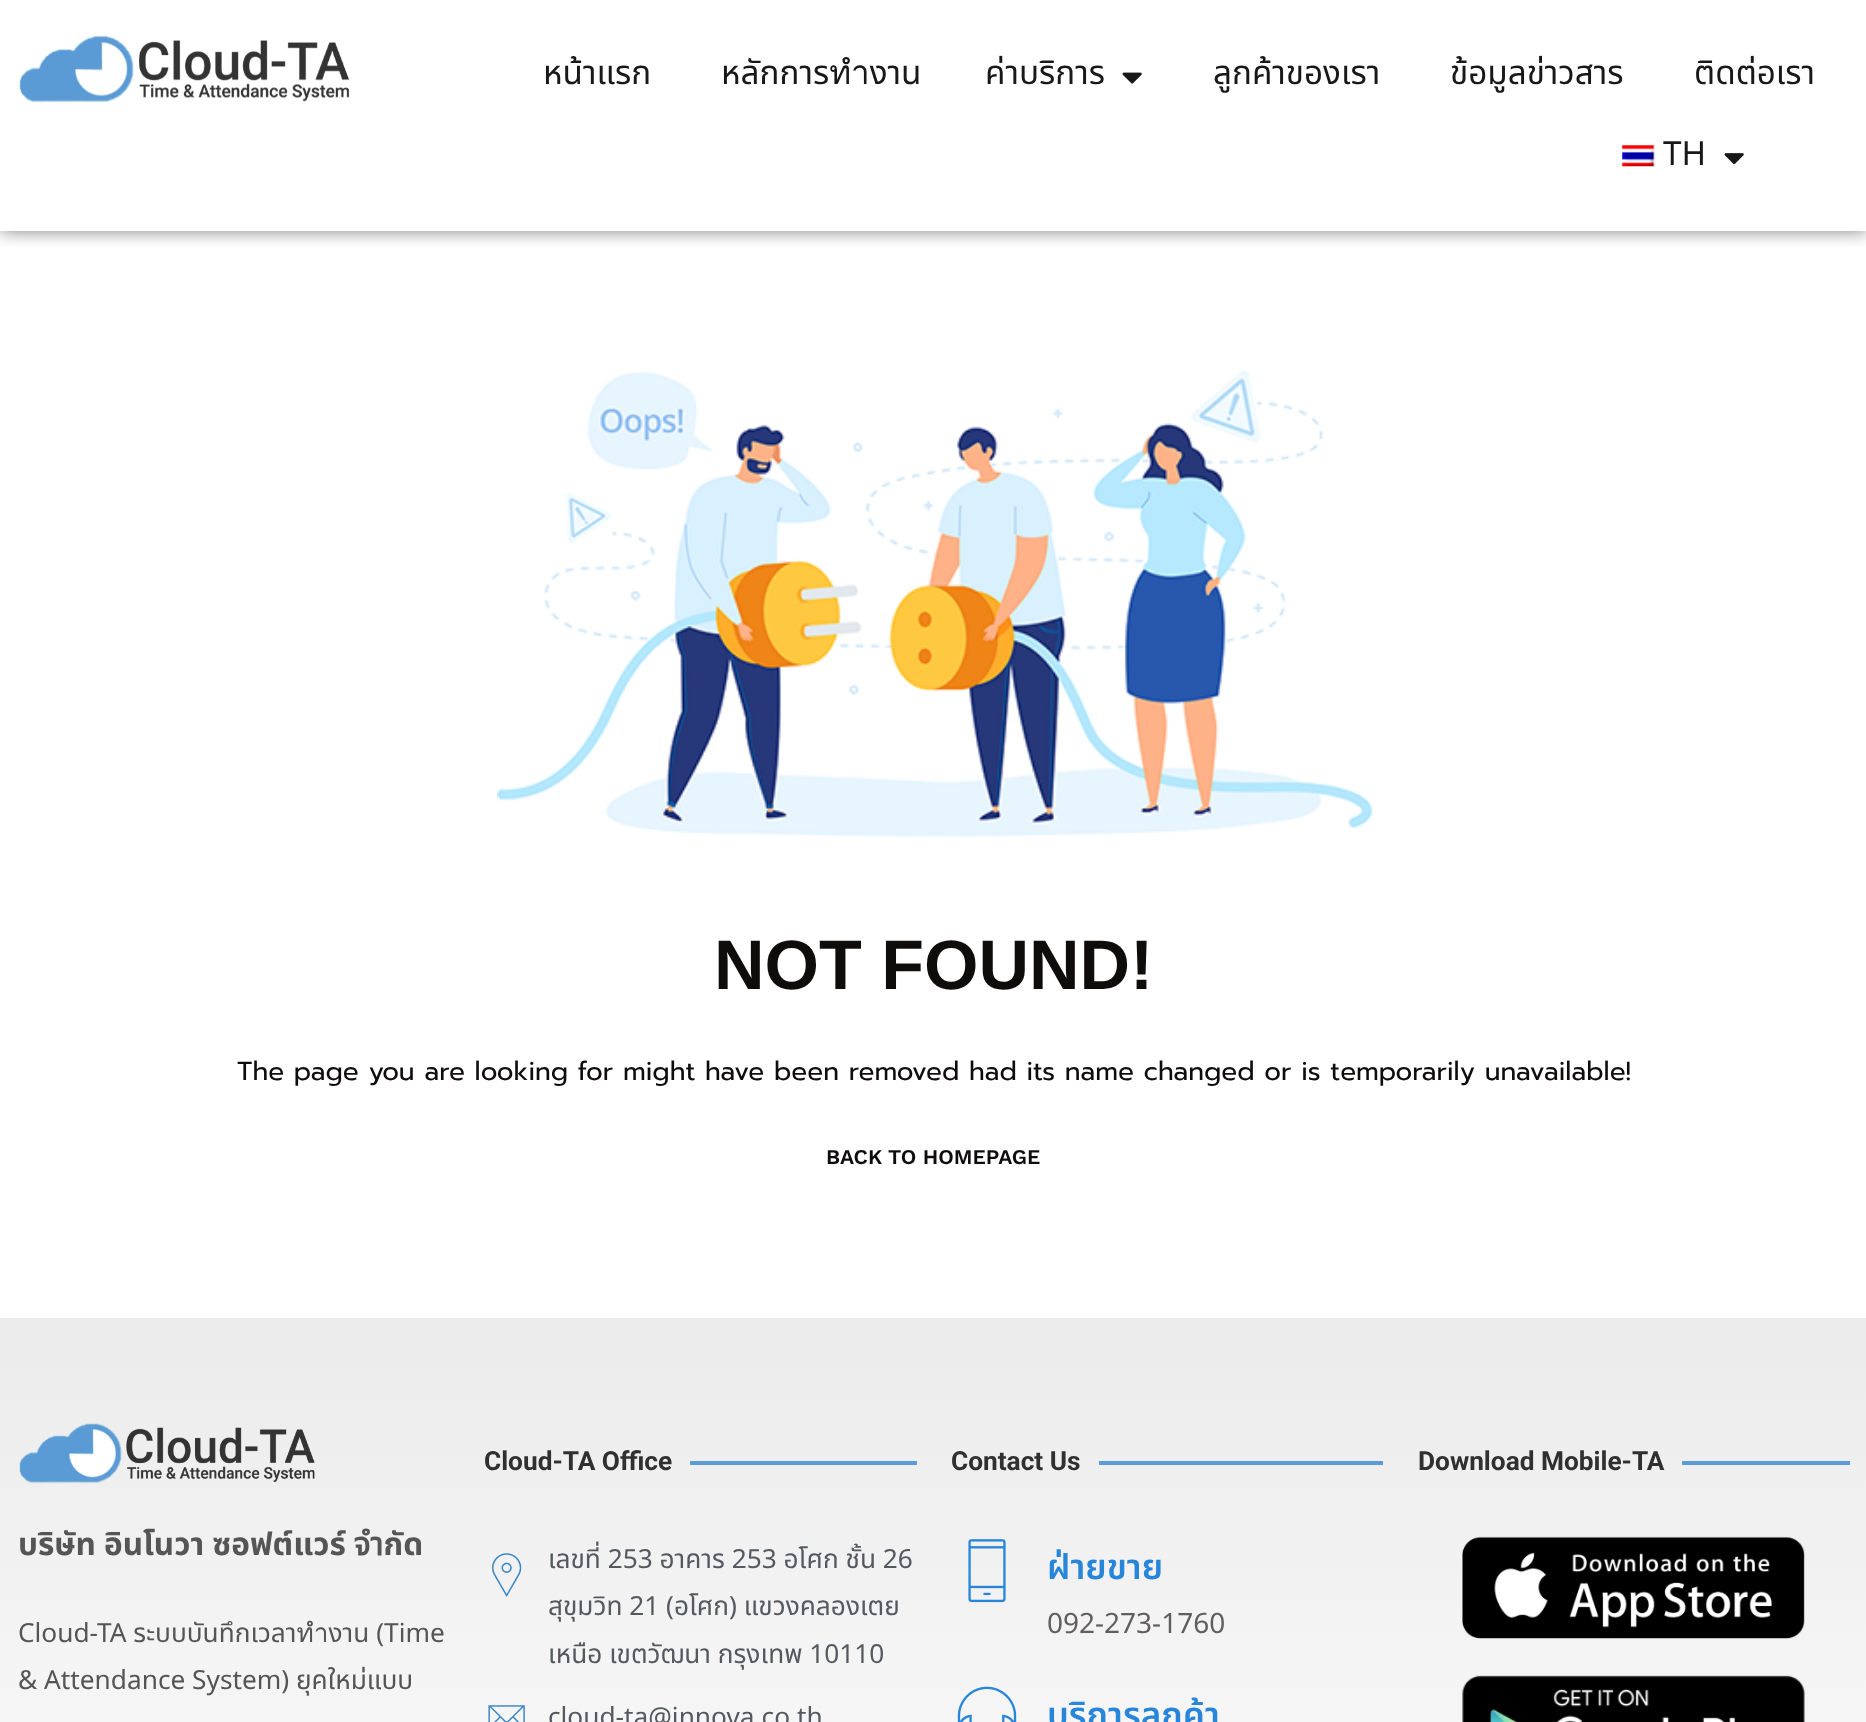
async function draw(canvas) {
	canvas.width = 1866;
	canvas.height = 1722;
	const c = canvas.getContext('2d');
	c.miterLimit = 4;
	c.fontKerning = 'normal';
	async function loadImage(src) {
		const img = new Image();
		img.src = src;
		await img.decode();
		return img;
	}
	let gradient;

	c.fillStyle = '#fff';
	c.fillRect(0, 0, 1866, 1722);
	c.save();
	c.beginPath();
	c.rect(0, 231, 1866, 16);
	c.clip();
	c.fillStyle = '#00000080';
	c.filter = 'blur(9px)';
	c.beginPath();
	c.rect(0, 0, 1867, 231);
	c.fill();
	c.filter = 'none';
	c.restore();
	c.drawImage(await loadImage('img1.png'), 19, 35, 331, 69);
	c.font = '33.25px Noto Sans Thai';
	c.fillStyle = '#181818';
	for (const [text, x, y] of [
		['หน้าแรก', 543, 84],
		['หลักการทำงาน', 721, 84],
		['ค่าบริการ', 985, 84],
	]) {
		c.fillText(text, x, y);
	}
	c.drawImage(await loadImage('img2.png'), 1122, 72, 20, 12);
	for (const [text, x, y] of [
		['ลูกค้าของเรา', 1213, 84],
		['ข้อมูลข่าวสาร', 1450, 84],
		['ติดต่อเรา', 1694, 84],
	]) {
		c.fillText(text, x, y);
	}
	c.drawImage(await loadImage('img3.png'), 1622, 145, 33, 22);
	c.fillText('TH', 1663, 165);
	c.drawImage(await loadImage('img4.png'), 1724, 153, 20, 12);
	c.drawImage(await loadImage('img5.png'), 497, 371, 875, 466);
	c.font = 'bold 70px Liberation Sans';
	c.fillStyle = '#0f0c0c';
	c.fillText('NOT FOUND!', 714, 989);
	c.font = '26.25px Prompt';
	c.fillText('The page you are looking for might have been removed had its name changed or is temporarily unavailable!', 237, 1080);
	c.font = '600 21px Work Sans';
	c.fillText('BACK TO HOMEPAGE', 826, 1164);
	gradient = c.createLinearGradient(934, 1318, 934, 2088);
	gradient.addColorStop(0, '#ebebeb');
	gradient.addColorStop(1, '#fff');
	c.fillStyle = gradient;
	c.fillRect(0, 1318, 1866, 404);
	c.drawImage(await loadImage('img6.png'), 19, 1423, 296, 61);
	c.font = 'bold 31.5px Noto Sans Thai';
	c.fillStyle = '#555';
	c.fillText('บริษัท อินโนวา ซอฟต์แวร์ จำกัด', 18, 1555);
	c.font = '26.25px Noto Sans Thai';
	c.fillText('Cloud-TA ระบบบันทึกเวลาทำงาน (Time', 18, 1642);
	c.fillText('& Attendance System) ยุคใหม่แบบ', 18, 1689);
	c.font = 'bold 26.25px Roboto';
	c.fillStyle = '#303030';
	c.fillText('Cloud-TA Office', 484, 1470);
	c.fillStyle = '#5c9cd4';
	c.fillRect(690, 1461, 227, 4);
	c.drawImage(await loadImage('img7.png'), 492, 1553, 30, 44);
	c.font = '26.25px Noto Sans Thai';
	c.fillStyle = '#54595f';
	for (const [text, x, y] of [
		['เลขที่ 253 อาคาร 253 อโศก ชั้น 26', 548, 1568],
		['สุขุมวิท 21 (อโศก) แขวงคลองเตย', 548, 1615],
		['เหนือ เขตวัฒนา กรุงเทพ 10110', 548, 1663],
	]) {
		c.fillText(text, x, y);
	}
	c.drawImage(await loadImage('img8.png'), 488, 1705, 37, 17);
	c.fillText('cloud-ta@innova.co.th', 548, 1726);
	c.font = 'bold 26.25px Roboto';
	c.fillStyle = '#303030';
	c.fillText('Contact Us', 951, 1470);
	c.fillStyle = '#5c9cd4';
	c.fillRect(1099, 1461, 284, 4);
	c.drawImage(await loadImage('img9.png'), 968, 1539, 38, 64);
	c.font = '600 35px Noto Sans Thai';
	c.fillStyle = '#2886da';
	c.fillText('ฝ่ายขาย', 1047, 1579);
	c.font = '28px Noto Sans Thai';
	c.fillStyle = '#615e5e';
	c.fillText('092-273-1760', 1047, 1633);
	c.drawImage(await loadImage('img10.png'), 957, 1686, 60, 36);
	c.font = '600 35px Noto Sans Thai';
	c.fillStyle = '#2886da';
	c.fillText('บริการลูกค้า', 1047, 1727);
	c.font = 'bold 26.25px Roboto';
	c.fillStyle = '#303030';
	c.fillText('Download Mobile-TA', 1418, 1470);
	c.fillStyle = '#5c9cd4';
	c.fillRect(1682, 1461, 168, 4);
	c.drawImage(await loadImage('img11.png'), 1462, 1536, 343, 103);
	c.drawImage(await loadImage('img12.png'), 1462, 1675, 343, 47);
}

draw(document.querySelector('canvas'));
